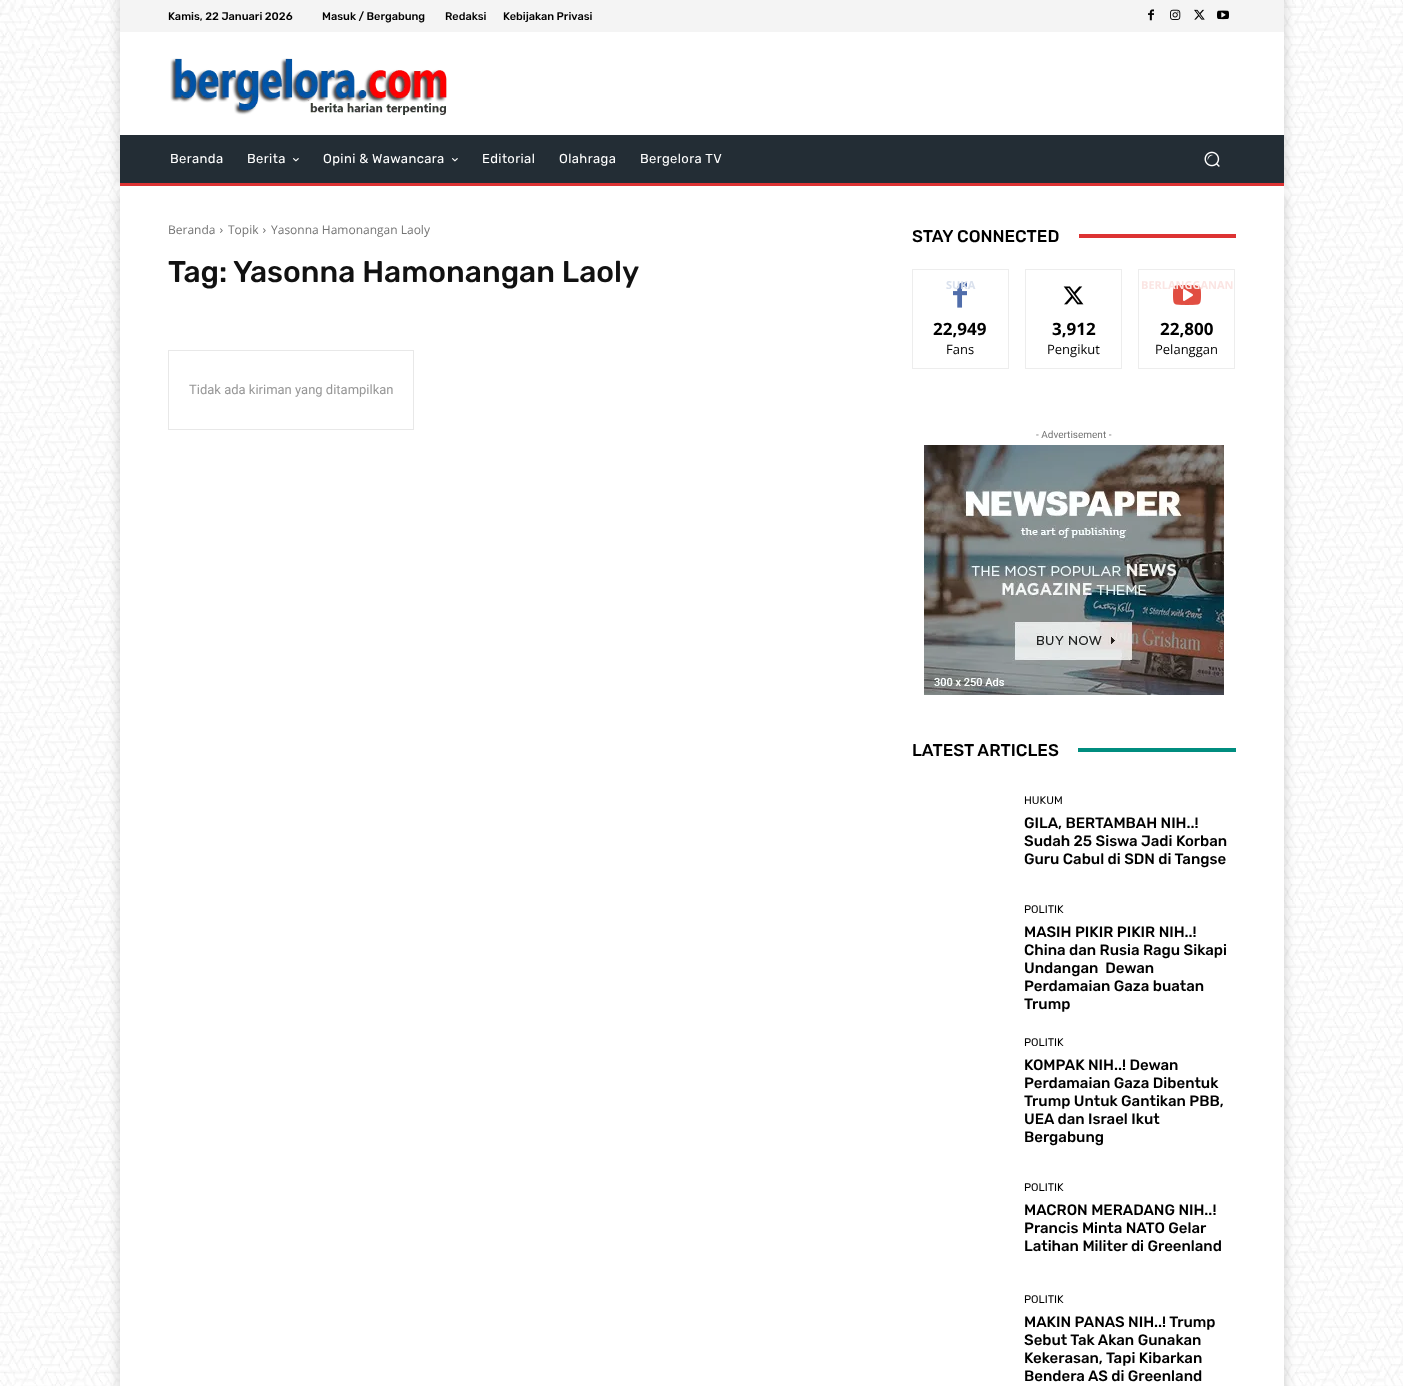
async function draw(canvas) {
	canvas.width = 1403;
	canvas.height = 1386;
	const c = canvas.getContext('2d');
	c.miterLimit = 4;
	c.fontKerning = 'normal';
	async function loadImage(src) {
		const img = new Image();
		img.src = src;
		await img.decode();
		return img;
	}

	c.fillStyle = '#fff';
	c.fillRect(0, 0, 1403, 1386);
	c.drawImage(await loadImage('img1.png'), 0, 0, 1403, 1386);
	c.fillStyle = '#0000001f';
	c.filter = 'blur(5px)';
	c.beginPath();
	c.rect(117, 193, 1170, 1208);
	c.fill();
	c.filter = 'none';
	c.fillStyle = '#fff';
	c.fillRect(120, 196, 1164, 1190);
	c.fillStyle = '#0000001f';
	c.filter = 'blur(5px)';
	c.beginPath();
	c.rect(117, -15, 1170, 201);
	c.fill();
	c.filter = 'none';
	c.fillStyle = '#f4f4f4';
	c.fillRect(120, 0, 1164, 32);
	c.font = '500 11px Rubik';
	c.fillStyle = '#000';
	for (const [text, x, y] of [
		['Kamis, 22 Januari 2026', 168, 20],
		['Masuk / Bergabung', 322, 20],
		['Redaksi', 445, 20],
		['Kebijakan Privasi', 503, 20],
	]) {
		c.fillText(text, x, y);
	}
	c.drawImage(await loadImage('img2.png'), 1148, 9, 6, 12);
	c.drawImage(await loadImage('img3.png'), 1170, 9, 11, 11);
	c.drawImage(await loadImage('img4.png'), 1194, 9, 11, 11);
	c.drawImage(await loadImage('img5.png'), 1217, 10, 12, 10);
	c.fillStyle = '#fff';
	c.fillRect(120, 32, 1164, 164);
	c.drawImage(await loadImage('img6.png'), 170, 58, 277, 57);
	c.fillStyle = '#232d35';
	c.fillRect(120, 135, 1164, 48);
	c.letterSpacing = '0.4px';
	c.font = '13px Rubik';
	c.fillStyle = '#fff';
	c.fillText('Beranda', 170, 163);
	c.fillText('Berita', 247, 163);
	c.drawImage(await loadImage('img7.png'), 293, 158, 6, 4);
	c.fillText('Opini & Wawancara', 323, 163);
	c.drawImage(await loadImage('img7.png'), 452, 158, 6, 4);
	for (const [text, x, y] of [
		['Editorial', 482, 163],
		['Olahraga', 559, 163],
		['Bergelora TV', 640, 163],
	]) {
		c.fillText(text, x, y);
	}
	c.drawImage(await loadImage('img8.png'), 1204, 151, 16, 16);
	c.fillStyle = '#d33';
	c.fillRect(120, 183, 1164, 3);
	c.letterSpacing = '0px';
	c.font = '12px Open Sans';
	c.fillStyle = '#747474';
	c.fillText('Beranda', 168, 234);
	c.drawImage(await loadImage('img9.png'), 220, 228, 3, 5);
	c.fillText('Topik', 228, 234);
	c.drawImage(await loadImage('img9.png'), 263, 228, 3, 5);
	c.fillText('Yasonna Hamonangan Laoly', 271, 234);
	c.font = '500 30px Rubik';
	c.fillStyle = '#111';
	c.fillText('Tag:', 168, 282);
	c.fillText('Yasonna Hamonangan Laoly', 233, 282);
	c.strokeStyle = '#e8e8e8';
	c.strokeRect(168.5, 350.5, 245, 79);
	c.font = '13px Roboto';
	c.fillStyle = '#979797';
	c.fillText('Tidak ada kiriman yang ditampilkan', 189, 394);
	c.font = '500 17px Rubik';
	c.fillStyle = '#000';
	c.fillText('STAY CONNECTED', 912, 242);
	c.fillStyle = '#d33';
	c.fillRect(1079, 234, 157, 4);
	c.strokeStyle = '#ededed';
	c.strokeRect(912.5, 269.5, 96, 99);
	c.drawImage(await loadImage('img10.png'), 953, 282, 14, 26);
	c.font = 'bold 11px Open Sans';
	c.fillStyle = '#dae1ed';
	c.fillText('SUKA', 946, 289);
	c.font = 'bold 17px Open Sans';
	c.fillStyle = '#000';
	c.fillText('22,949', 933, 335);
	c.font = '13px Open Sans';
	c.fillText('Fans', 946, 354);
	c.strokeRect(1025.5, 269.5, 96, 99);
	c.drawImage(await loadImage('img11.png'), 1063, 286, 21, 19);
	c.font = 'bold 17px Open Sans';
	c.fillText('3,912', 1052, 335);
	c.font = '13px Open Sans';
	c.fillText('Pengikut', 1047, 354);
	c.strokeRect(1138.5, 269.5, 96, 99);
	c.drawImage(await loadImage('img12.png'), 1173, 285, 28, 20);
	c.font = 'bold 11px Open Sans';
	c.fillStyle = '#fbe5e3';
	c.fillText('BERLANGGANAN', 1141, 289);
	c.font = 'bold 17px Open Sans';
	c.fillStyle = '#000';
	c.fillText('22,800', 1160, 335);
	c.font = '13px Open Sans';
	c.fillText('Pelanggan', 1155, 354);
	c.font = '10px Roboto';
	c.fillStyle = '#747474';
	c.fillText('- Advertisement -', 1036, 438);
	c.drawImage(await loadImage('img13.png'), 924, 445, 300, 250);
	c.font = '500 17px Rubik';
	c.fillStyle = '#000';
	c.fillText('LATEST ARTICLES', 912, 756);
	c.fillStyle = '#008d7f';
	c.fillRect(1078, 748, 158, 4);
	c.font = '11px Rubik';
	c.fillStyle = '#000';
	c.fillText('HUKUM', 1024, 804);
	c.font = '500 15px Rubik';
	for (const [text, x, y] of [
		['GILA, BERTAMBAH NIH..!', 1024, 828],
		['Sudah 25 Siswa Jadi Korban', 1024, 846],
		['Guru Cabul di SDN di Tangse', 1024, 864],
	]) {
		c.fillText(text, x, y);
	}
	c.font = '11px Rubik';
	c.fillText('POLITIK', 1024, 913);
	c.font = '500 15px Rubik';
	for (const [text, x, y] of [
		['MASIH PIKIR PIKIR NIH..!', 1024, 937],
		['China dan Rusia Ragu Sikapi', 1024, 955],
		['Undangan  Dewan', 1024, 973],
		['Perdamaian Gaza buatan', 1024, 991],
		['Trump', 1024, 1009],
	]) {
		c.fillText(text, x, y);
	}
	c.font = '11px Rubik';
	c.fillText('POLITIK', 1024, 1046);
	c.font = '500 15px Rubik';
	for (const [text, x, y] of [
		['KOMPAK NIH..! Dewan', 1024, 1070],
		['Perdamaian Gaza Dibentuk', 1024, 1088],
		['Trump Untuk Gantikan PBB,', 1024, 1106],
		['UEA dan Israel Ikut', 1024, 1124],
		['Bergabung', 1024, 1142],
	]) {
		c.fillText(text, x, y);
	}
	c.font = '11px Rubik';
	c.fillText('POLITIK', 1024, 1191);
	c.font = '500 15px Rubik';
	for (const [text, x, y] of [
		['MACRON MERADANG NIH..!', 1024, 1215],
		['Prancis Minta NATO Gelar', 1024, 1233],
		['Latihan Militer di Greenland', 1024, 1251],
	]) {
		c.fillText(text, x, y);
	}
	c.font = '11px Rubik';
	c.fillText('POLITIK', 1024, 1303);
	c.font = '500 15px Rubik';
	for (const [text, x, y] of [
		['MAKIN PANAS NIH..! Trump', 1024, 1327],
		['Sebut Tak Akan Gunakan', 1024, 1345],
		['Kekerasan, Tapi Kibarkan', 1024, 1363],
		['Bendera AS di Greenland', 1024, 1381],
	]) {
		c.fillText(text, x, y);
	}
}

draw(document.querySelector('canvas'));
